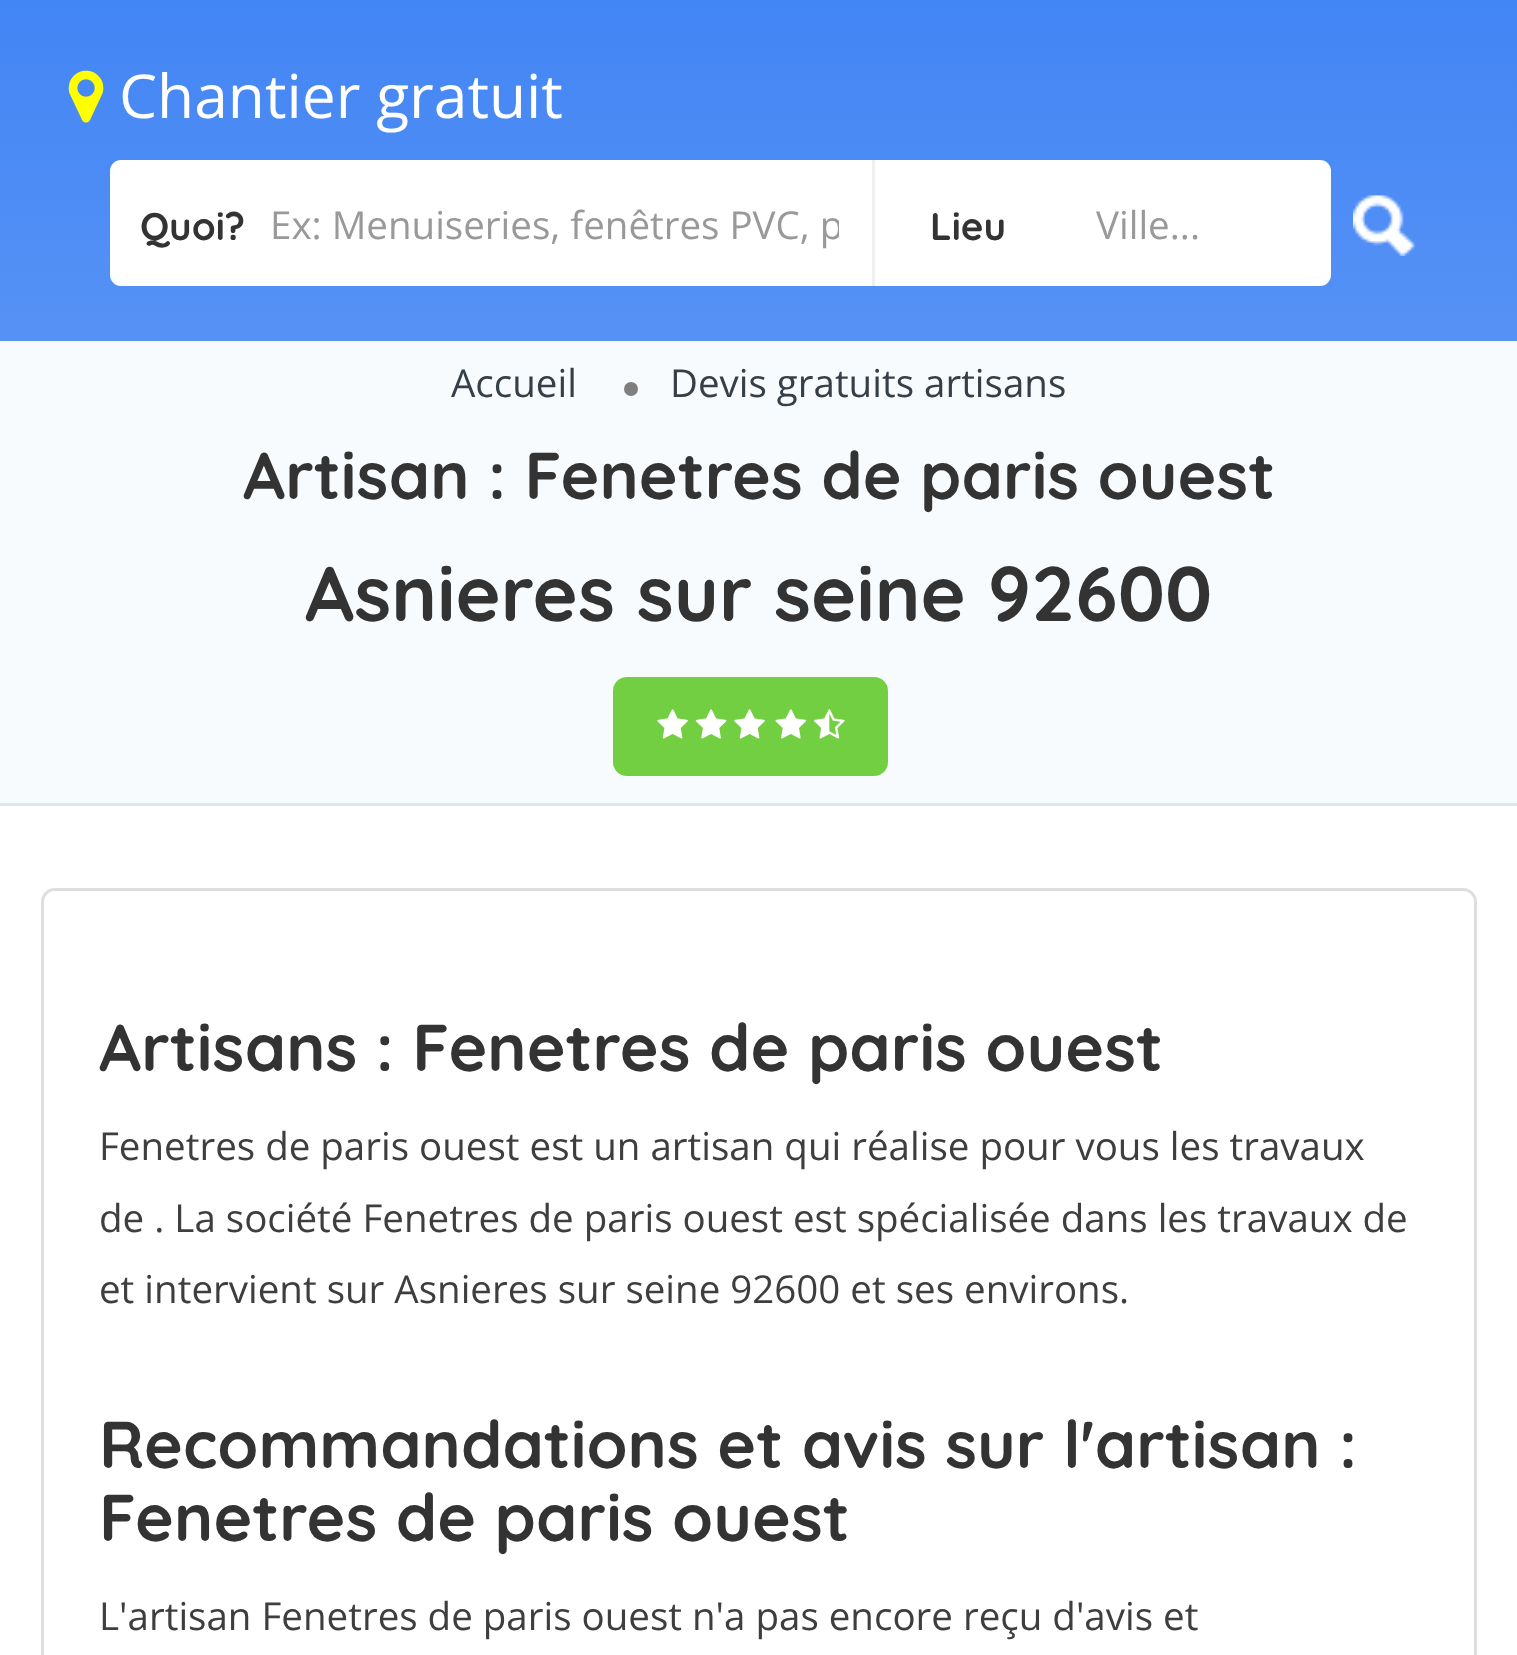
async function draw(canvas) {
	canvas.width = 1517;
	canvas.height = 1655;
	const c = canvas.getContext('2d');
	c.miterLimit = 4;
	c.fontKerning = 'normal';
	async function loadImage(src) {
		const img = new Image();
		img.src = src;
		await img.decode();
		return img;
	}
	let gradient;

	c.fillStyle = '#fff';
	c.fillRect(0, 0, 1517, 1655);
	gradient = c.createLinearGradient(759, 0, 759, 341);
	gradient.addColorStop(0, '#4285f4');
	gradient.addColorStop(1, '#5692f6');
	c.fillStyle = gradient;
	c.fillRect(0, 0, 1517, 341);
	c.drawImage(await loadImage('img1.png'), 68, 70, 36, 53);
	c.font = '60.5px Open Sans';
	c.fillStyle = '#fff';
	c.fillText('Chantier gratuit', 119, 118);
	c.beginPath();
	c.roundRect(110, 160, 765, 126, [11, 0, 0, 11]);
	c.fill();
	c.fillStyle = '#f0f0f0';
	c.fillRect(872, 160, 3, 126);
	c.font = 'bold 38.5px Quicksand';
	c.fillStyle = '#333';
	c.fillText('Quoi?', 140, 240);
	c.save();
	c.beginPath();
	c.rect(270, 198, 569, 52);
	c.clip();
	c.font = '38.5px Open Sans';
	c.fillStyle = '#999';
	c.fillText('Ex: Menuiseries, fenêtres PVC, p', 270, 239);
	c.restore();
	c.fillStyle = '#fff';
	c.beginPath();
	c.roundRect(875, 160, 456, 126, [0, 11, 11, 0]);
	c.fill();
	c.beginPath();
	c.roundRect(875, 160, 456, 126, [0, 14, 14, 0]);
	c.fill();
	c.fillStyle = '#333';
	c.fillText('Lieu', 930, 240);
	c.font = '38.5px Open Sans';
	c.fillStyle = '#999';
	c.fillText('Ville...', 1096, 239);
	c.drawImage(await loadImage('img2.png'), 1353, 195, 63, 61);
	c.fillStyle = '#f7fbfe';
	c.fillRect(0, 341, 1517, 462);
	c.fillStyle = '#dbe7ef';
	c.fillRect(0, 803, 1517, 3);
	c.fillStyle = '#363f48';
	c.fillText('Accueil', 451, 397);
	c.fillStyle = '#7f7f7f';
	c.beginPath();
	c.arc(631, 389, 7, 0, 2 * Math.PI);
	c.fill();
	c.fillStyle = '#363f48';
	c.fillText('Devis gratuits artisans', 670, 397);
	c.font = 'bold 66px Quicksand';
	c.fillStyle = '#333';
	c.fillText('Artisan : Fenetres de paris ouest', 243, 499);
	c.font = 'bold 77px Quicksand';
	c.fillText('Asnieres sur seine 92600', 305, 621);
	c.fillStyle = '#73cf42';
	c.beginPath();
	c.roundRect(613, 677, 275, 99, 14);
	c.fill();
	c.drawImage(await loadImage('img3.png'), 657, 709, 31, 30);
	c.drawImage(await loadImage('img4.png'), 695, 709, 32, 30);
	c.drawImage(await loadImage('img3.png'), 734, 709, 31, 30);
	c.drawImage(await loadImage('img5.png'), 775, 709, 32, 30);
	c.drawImage(await loadImage('img6.png'), 814, 709, 31, 30);
	c.beginPath();
	c.roundRect(42.5, 889.5, 1433, 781, 12.5);
	c.strokeStyle = '#dedede';
	c.lineWidth = 3;
	c.stroke();
	c.font = 'bold 66px Quicksand';
	c.fillStyle = '#333';
	c.fillText('Artisans : Fenetres de paris ouest', 99, 1071);
	c.font = '38.5px Open Sans';
	c.fillStyle = '#3e3e3e';
	for (const [text, x, y] of [
		['Fenetres de paris ouest est un artisan qui réalise pour vous les travaux', 99, 1160],
		['de . La société Fenetres de paris ouest est spécialisée dans les travaux de', 99, 1232],
		['et intervient sur Asnieres sur seine 92600 et ses environs.', 99, 1303],
	]) {
		c.fillText(text, x, y);
	}
	c.font = 'bold 66px Quicksand';
	c.fillStyle = '#333';
	c.fillText('Recommandations et avis sur l\'artisan :', 99, 1468);
	c.fillText('Fenetres de paris ouest', 99, 1541);
	c.font = '38.5px Open Sans';
	c.fillStyle = '#3e3e3e';
	c.fillText('L\'artisan Fenetres de paris ouest n\'a pas encore reçu d\'avis et', 99, 1630);
}

draw(document.querySelector('canvas'));
